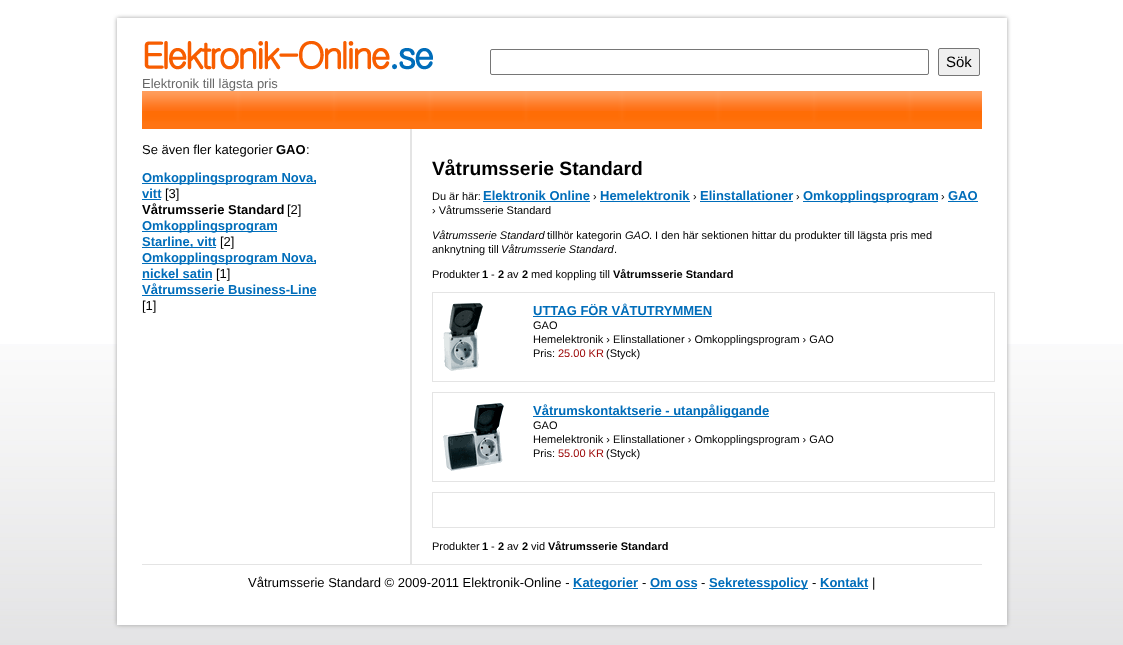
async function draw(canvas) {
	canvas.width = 1123;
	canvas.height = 645;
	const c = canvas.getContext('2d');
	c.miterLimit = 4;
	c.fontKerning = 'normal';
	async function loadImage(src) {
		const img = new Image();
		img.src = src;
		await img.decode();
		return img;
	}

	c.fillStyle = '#fff';
	c.fillRect(0, 0, 1123, 645);
	c.drawImage(await loadImage('img1.png'), 0, 344, 1123, 301);
	c.fillStyle = '#a1a1a1';
	c.filter = 'blur(2px)';
	c.beginPath();
	c.rect(117, 18, 890, 607);
	c.fill();
	c.filter = 'none';
	c.fillStyle = '#fff';
	c.fillRect(117, 18, 890, 607);
	c.beginPath();
	c.roundRect(490.5, 49.5, 438, 25, 1.5);
	c.strokeStyle = '#767676';
	c.stroke();
	c.fillStyle = '#efefef';
	c.beginPath();
	c.roundRect(938.5, 48.5, 41, 27, 1.5);
	c.fill();
	c.stroke();
	c.font = '15px Liberation Sans';
	c.fillStyle = '#000';
	c.fillText('Sök', 946, 67);
	c.drawImage(await loadImage('img2.png'), 144, 41, 289, 29);
	c.font = '13px Liberation Sans';
	c.fillStyle = '#676767';
	c.fillText('Elektronik till lägsta pris', 142, 88);
	c.drawImage(await loadImage('img3.png'), 142, 91, 840, 38);
	c.fillStyle = '#000';
	c.fillText('Se även fler kategorier', 142, 154);
	c.font = 'bold 13px Liberation Sans';
	c.fillText('GAO', 276, 154);
	c.font = '13px Liberation Sans';
	c.fillText(':', 306, 154);
	c.fillStyle = '#006dba';
	c.fillRect(142, 183, 174, 1);
	c.font = 'bold 13px Liberation Sans';
	c.fillText('Omkopplingsprogram Nova,', 142, 182);
	c.fillText('vitt', 142, 198);
	c.fillRect(142, 199, 19, 1);
	c.font = '13px Liberation Sans';
	c.fillStyle = '#000';
	c.fillText('[3]', 165, 198);
	c.font = 'bold 13px Liberation Sans';
	c.fillText('Våtrumsserie Standard', 142, 214);
	c.font = '13px Liberation Sans';
	c.fillText('[2]', 287, 214);
	c.fillStyle = '#006dba';
	c.fillRect(142, 231, 135, 1);
	c.font = 'bold 13px Liberation Sans';
	c.fillText('Omkopplingsprogram', 142, 230);
	c.fillRect(142, 247, 74, 1);
	c.fillText('Starline, vitt', 142, 246);
	c.font = '13px Liberation Sans';
	c.fillStyle = '#000';
	c.fillText('[2]', 220, 246);
	c.fillStyle = '#006dba';
	c.fillRect(142, 263, 174, 1);
	c.font = 'bold 13px Liberation Sans';
	c.fillText('Omkopplingsprogram Nova,', 142, 262);
	c.fillText('nickel satin', 142, 278);
	c.fillRect(142, 279, 70, 1);
	c.font = '13px Liberation Sans';
	c.fillStyle = '#000';
	c.fillText('[1]', 216, 278);
	c.font = 'bold 13px Liberation Sans';
	c.fillStyle = '#006dba';
	c.fillText('Våtrumsserie Business-Line', 142, 294);
	c.fillRect(142, 295, 174, 1);
	c.font = '13px Liberation Sans';
	c.fillStyle = '#000';
	c.fillText('[1]', 142, 310);
	c.fillStyle = '#e4e4e4';
	c.fillRect(410, 129, 2, 435);
	c.font = 'bold 19.25px Liberation Sans';
	c.fillStyle = '#000';
	c.fillText('Våtrumsserie Standard', 432, 175);
	c.font = '11px Liberation Sans';
	c.fillText('Du är här:', 432, 200);
	c.font = 'bold 13px Liberation Sans';
	c.fillStyle = '#006dba';
	c.fillText('Elektronik Online', 483, 200);
	c.fillRect(483, 201, 107, 1);
	c.font = '11px Liberation Sans';
	c.fillStyle = '#000';
	c.fillText('›', 593, 200);
	c.font = 'bold 13px Liberation Sans';
	c.fillStyle = '#006dba';
	c.fillText('Hemelektronik', 600, 200);
	c.fillRect(600, 201, 90, 1);
	c.font = '11px Liberation Sans';
	c.fillStyle = '#000';
	c.fillText('›', 693, 200);
	c.font = 'bold 13px Liberation Sans';
	c.fillStyle = '#006dba';
	c.fillText('Elinstallationer', 700, 200);
	c.fillRect(700, 201, 93, 1);
	c.font = '11px Liberation Sans';
	c.fillStyle = '#000';
	c.fillText('›', 796, 200);
	c.fillStyle = '#006dba';
	c.fillRect(803, 201, 135, 1);
	c.font = 'bold 13px Liberation Sans';
	c.fillText('Omkopplingsprogram', 803, 200);
	c.font = '11px Liberation Sans';
	c.fillStyle = '#000';
	c.fillText('›', 941, 200);
	c.font = 'bold 13px Liberation Sans';
	c.fillStyle = '#006dba';
	c.fillText('GAO', 948, 200);
	c.fillRect(948, 201, 30, 1);
	c.font = '11px Liberation Sans';
	c.fillStyle = '#000';
	c.fillText('› Våtrumsserie Standard', 432, 214);
	c.font = 'italic 11px Liberation Sans';
	c.fillText('Våtrumsserie Standard', 432, 239);
	c.font = '11px Liberation Sans';
	c.fillText('tillhör kategorin', 547, 239);
	c.font = 'italic 11px Liberation Sans';
	c.fillText('GAO', 625, 239);
	c.font = '11px Liberation Sans';
	c.fillText('. I den här sektionen hittar du produkter till lägsta pris med', 649, 239);
	c.fillText('anknytning till', 432, 253);
	c.font = 'italic 11px Liberation Sans';
	c.fillText('Våtrumsserie Standard', 501, 253);
	c.font = '11px Liberation Sans';
	c.fillText('.', 614, 253);
	c.fillText('Produkter', 432, 278);
	c.font = 'bold 11px Liberation Sans';
	c.fillText('1', 482, 278);
	c.font = '11px Liberation Sans';
	c.fillText('-', 491, 278);
	c.font = 'bold 11px Liberation Sans';
	c.fillText('2', 498, 278);
	c.font = '11px Liberation Sans';
	c.fillText('av', 507, 278);
	c.font = 'bold 11px Liberation Sans';
	c.fillText('2', 522, 278);
	c.font = '11px Liberation Sans';
	c.fillText('med koppling till', 531, 278);
	c.font = 'bold 11px Liberation Sans';
	c.fillText('Våtrumsserie Standard', 613, 278);
	c.strokeStyle = '#e4e4e4';
	c.strokeRect(432.5, 292.5, 562, 89);
	c.drawImage(await loadImage('img4.png'), 443, 303, 40, 68);
	c.font = 'bold 13px Liberation Sans';
	c.fillStyle = '#006dba';
	c.fillText('UTTAG FÖR VÅTUTRYMMEN', 533, 315);
	c.fillRect(533, 316, 179, 1);
	c.font = '11px Liberation Sans';
	c.fillStyle = '#000';
	for (const [text, x, y] of [
		['GAO', 533, 329],
		['Hemelektronik › Elinstallationer › Omkopplingsprogram › GAO', 533, 343],
		['Pris:', 533, 357],
	]) {
		c.fillText(text, x, y);
	}
	c.fillStyle = '#900';
	c.fillText('25.00 KR', 558, 357);
	c.fillStyle = '#000';
	c.fillText('(Styck)', 606, 357);
	c.strokeRect(432.5, 392.5, 562, 89);
	c.drawImage(await loadImage('img5.png'), 443, 403, 61, 68);
	c.fillStyle = '#006dba';
	c.fillRect(533, 416, 236, 1);
	c.font = 'bold 13px Liberation Sans';
	c.fillText('Våtrumskontaktserie - utanpåliggande', 533, 415);
	c.font = '11px Liberation Sans';
	c.fillStyle = '#000';
	for (const [text, x, y] of [
		['GAO', 533, 429],
		['Hemelektronik › Elinstallationer › Omkopplingsprogram › GAO', 533, 443],
		['Pris:', 533, 457],
	]) {
		c.fillText(text, x, y);
	}
	c.fillStyle = '#900';
	c.fillText('55.00 KR', 558, 457);
	c.fillStyle = '#000';
	c.fillText('(Styck)', 606, 457);
	c.strokeRect(432.5, 492.5, 562, 35);
	c.fillText('Produkter', 432, 550);
	c.font = 'bold 11px Liberation Sans';
	c.fillText('1', 482, 550);
	c.font = '11px Liberation Sans';
	c.fillText('-', 491, 550);
	c.font = 'bold 11px Liberation Sans';
	c.fillText('2', 498, 550);
	c.font = '11px Liberation Sans';
	c.fillText('av', 507, 550);
	c.font = 'bold 11px Liberation Sans';
	c.fillText('2', 522, 550);
	c.font = '11px Liberation Sans';
	c.fillText('vid', 531, 550);
	c.font = 'bold 11px Liberation Sans';
	c.fillText('Våtrumsserie Standard', 548, 550);
	c.fillStyle = '#e4e4e4';
	c.fillRect(142, 564, 840, 1);
	c.font = '13px Liberation Sans';
	c.fillStyle = '#000';
	c.fillText('Våtrumsserie Standard © 2009-2011 Elektronik-Online -', 248, 587);
	c.fillStyle = '#006dba';
	c.fillRect(573, 588, 65, 1);
	c.font = 'bold 13px Liberation Sans';
	c.fillText('Kategorier', 573, 587);
	c.font = '13px Liberation Sans';
	c.fillStyle = '#000';
	c.fillText('-', 642, 587);
	c.font = 'bold 13px Liberation Sans';
	c.fillStyle = '#006dba';
	c.fillText('Om oss', 650, 587);
	c.fillRect(650, 588, 47, 1);
	c.font = '13px Liberation Sans';
	c.fillStyle = '#000';
	c.fillText('-', 701, 587);
	c.fillStyle = '#006dba';
	c.fillRect(709, 588, 99, 1);
	c.font = 'bold 13px Liberation Sans';
	c.fillText('Sekretesspolicy', 709, 587);
	c.font = '13px Liberation Sans';
	c.fillStyle = '#000';
	c.fillText('-', 812, 587);
	c.font = 'bold 13px Liberation Sans';
	c.fillStyle = '#006dba';
	c.fillText('Kontakt', 820, 587);
	c.fillRect(820, 588, 48, 1);
	c.font = '13px Liberation Sans';
	c.fillStyle = '#000';
	c.fillText('|', 872, 587);
}

draw(document.querySelector('canvas'));
